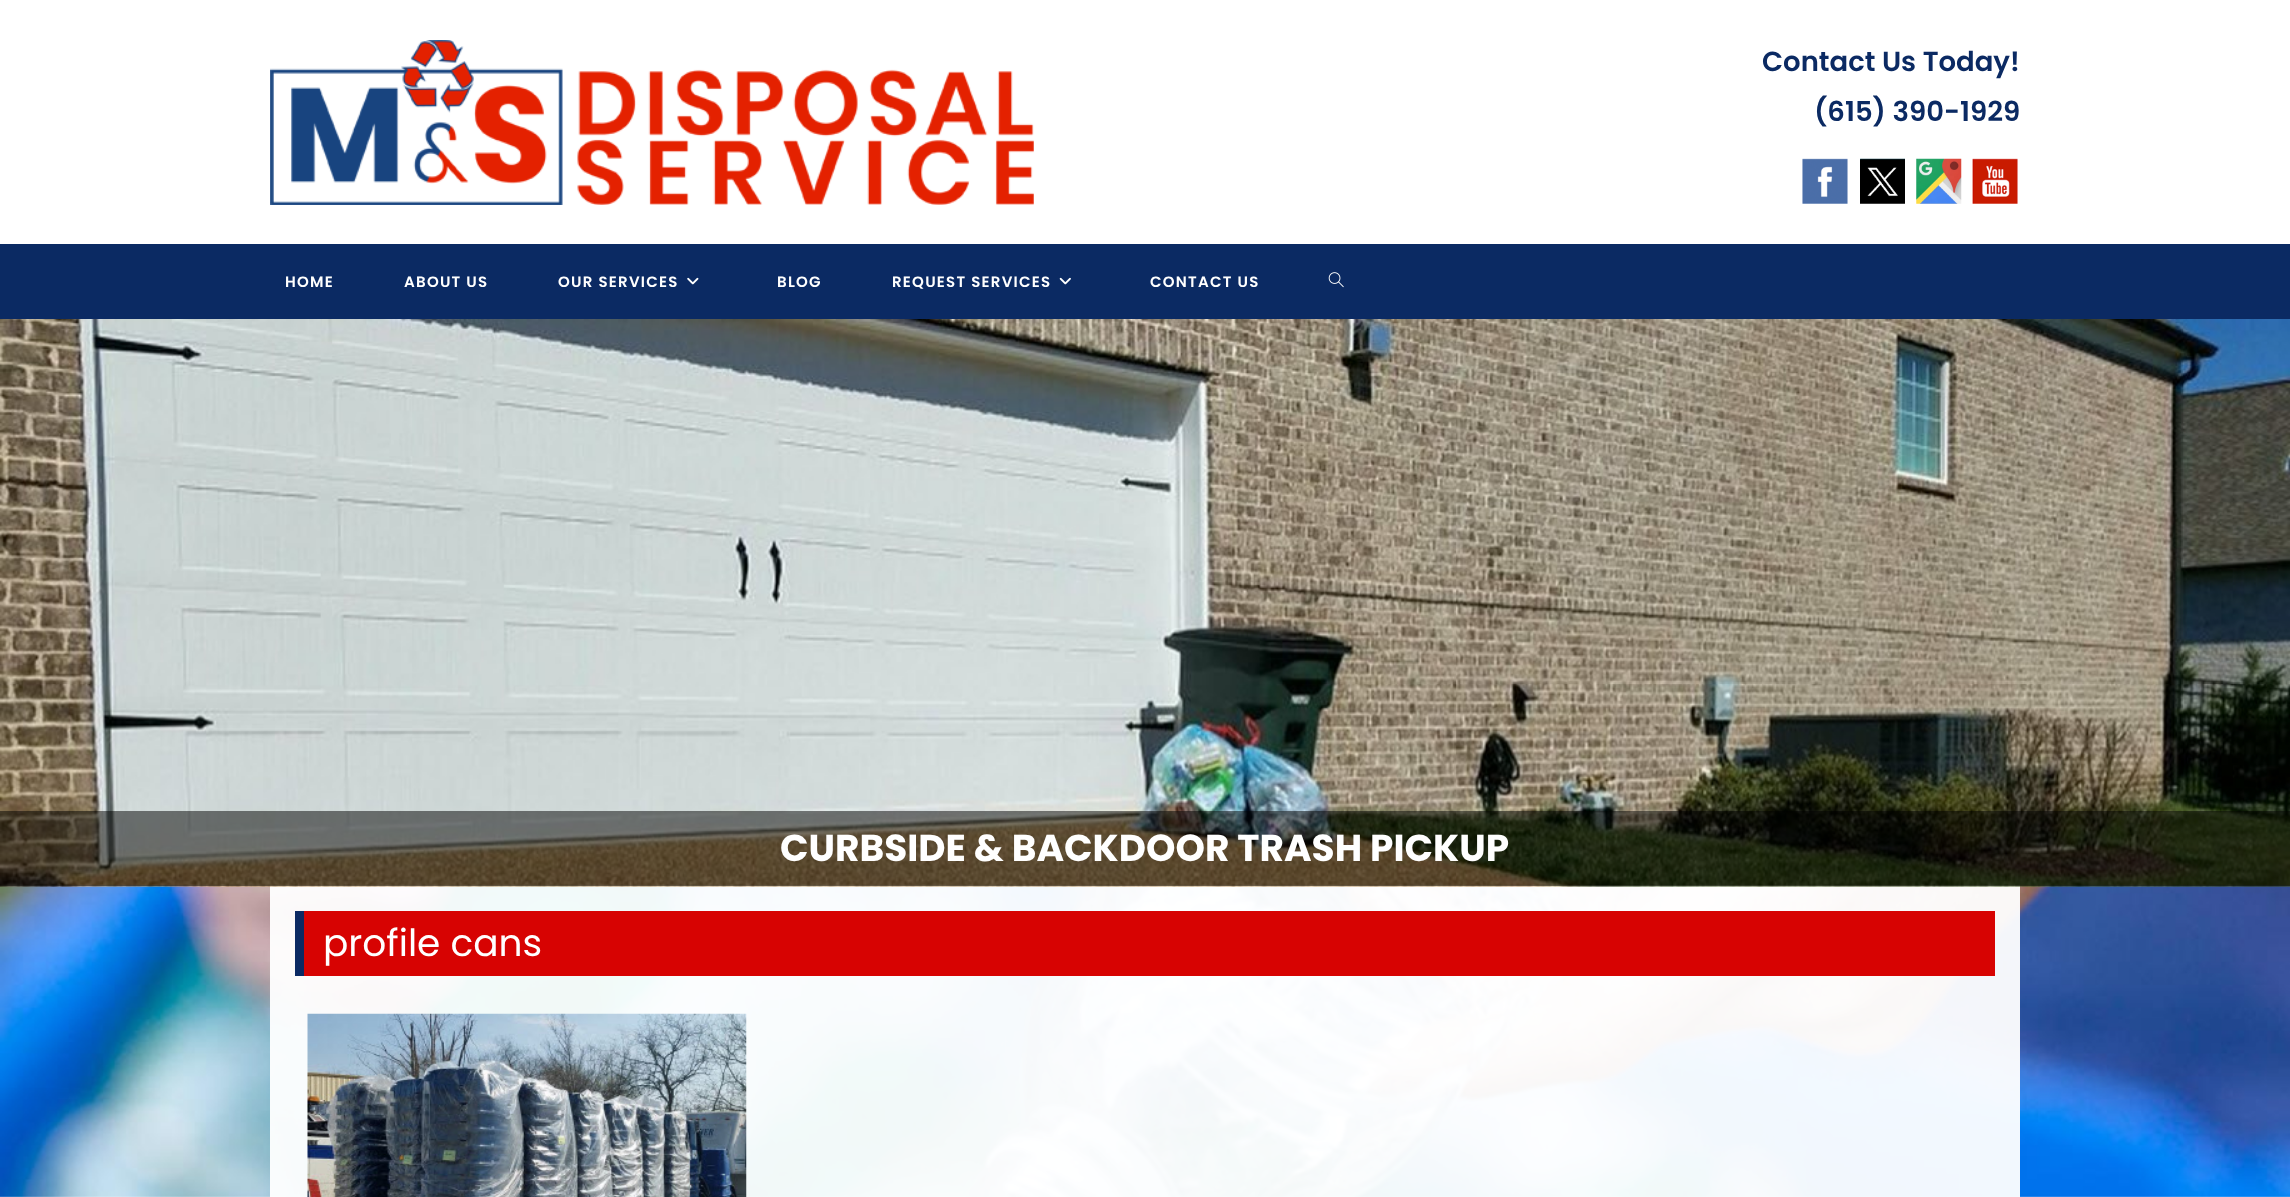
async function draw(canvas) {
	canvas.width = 2290;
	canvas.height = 1197;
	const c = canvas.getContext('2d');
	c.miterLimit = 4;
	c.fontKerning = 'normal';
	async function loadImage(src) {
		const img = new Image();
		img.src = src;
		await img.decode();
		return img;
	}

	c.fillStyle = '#fff';
	c.fillRect(0, 0, 2290, 1197);
	c.drawImage(await loadImage('img1.png'), 0, 885, 2290, 312);
	c.drawImage(await loadImage('img2.png'), 270, 40, 764, 165);
	c.font = '600 27.5px Poppins';
	c.fillStyle = '#0b2a63';
	c.fillText('Contact Us Today!', 1762, 71);
	c.fillText('(615) 390-1929', 1814, 121);
	c.drawImage(await loadImage('img3.png'), 1802, 158, 46, 46);
	c.drawImage(await loadImage('img4.png'), 1860, 158, 45, 46);
	c.drawImage(await loadImage('img5.png'), 1916, 158, 46, 46);
	c.drawImage(await loadImage('img6.png'), 1972, 158, 46, 46);
	c.fillRect(0, 244, 2290, 75);
	c.letterSpacing = '1.25px';
	c.font = '600 15px Poppins';
	c.fillStyle = '#fff';
	for (const [text, x, y] of [
		['HOME', 285, 287],
		['ABOUT US', 404, 287],
		['OUR SERVICES', 558, 287],
	]) {
		c.fillText(text, x, y);
	}
	c.drawImage(await loadImage('img7.png'), 687, 277, 12, 8);
	c.fillText('BLOG', 777, 287);
	c.fillText('REQUEST SERVICES', 892, 287);
	c.drawImage(await loadImage('img8.png'), 1059, 277, 12, 8);
	c.fillText('CONTACT US', 1150, 287);
	c.drawImage(await loadImage('img9.png'), 1328, 272, 16, 16);
	c.fillStyle = '#fffffff2';
	c.fillRect(270, 885, 1750, 91);
	c.drawImage(await loadImage('img10.png'), 0, 319, 2290, 568);
	c.fillStyle = '#00000080';
	c.fillRect(0, 811, 2290, 75);
	c.letterSpacing = '0px';
	c.font = 'bold 37.5px Poppins';
	c.fillStyle = '#fff';
	c.fillText('CURBSIDE & BACKDOOR TRASH PICKUP', 780, 861);
	c.fillStyle = '#d70302';
	c.fillRect(304, 911, 1691, 65);
	c.fillStyle = '#0b2a63';
	c.fillRect(295, 911, 9, 65);
	c.font = '37.5px Poppins';
	c.fillStyle = '#fff';
	c.fillText('profile cans', 323, 956);
	c.fillStyle = '#fffffff2';
	c.fillRect(270, 976, 1750, 221);
	c.drawImage(await loadImage('img11.png'), 307, 1013, 440, 184);
}

draw(document.querySelector('canvas'));
